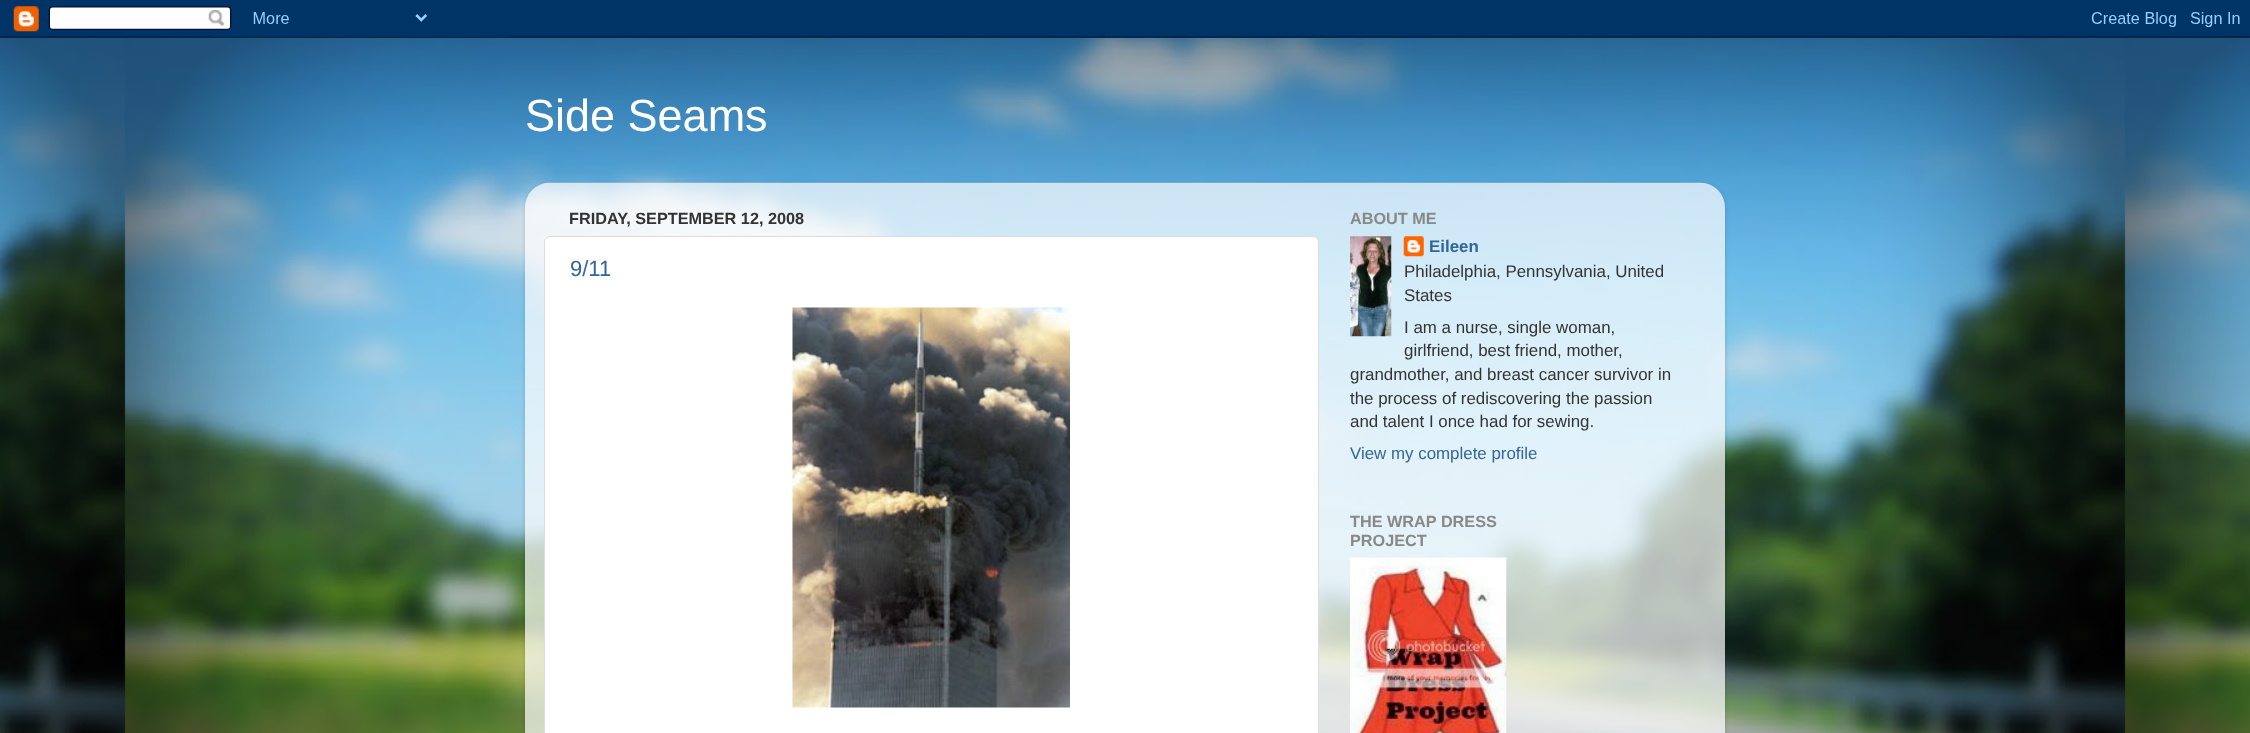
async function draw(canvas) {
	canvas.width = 2250;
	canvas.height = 733;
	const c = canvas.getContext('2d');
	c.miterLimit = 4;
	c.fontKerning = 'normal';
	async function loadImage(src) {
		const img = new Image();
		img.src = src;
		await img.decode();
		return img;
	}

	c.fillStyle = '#fff';
	c.fillRect(0, 0, 2250, 733);
	c.drawImage(await loadImage('img1.png'), 0, 36, 2250, 697);
	c.drawImage(await loadImage('img2.png'), 0, 0, 2250, 38);
	c.font = '45px Liberation Sans';
	c.fillText('Side Seams', 525, 131);
	c.save();
	c.beginPath();
	c.moveTo(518, 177);
	c.lineTo(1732, 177);
	c.lineTo(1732, 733);
	c.lineTo(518, 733);
	c.closePath();
	c.moveTo(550, 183);
	c.lineTo(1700, 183);
	c.bezierCurveTo(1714, 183, 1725, 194, 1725, 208);
	c.lineTo(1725, 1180);
	c.lineTo(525, 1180);
	c.lineTo(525, 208);
	c.bezierCurveTo(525, 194, 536, 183, 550, 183);
	c.closePath();
	c.clip('evenodd');
	c.fillStyle = '#00000026';
	c.filter = 'blur(2px)';
	c.beginPath();
	c.roundRect(525, 184, 1200, 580, 25);
	c.fill();
	c.filter = 'none';
	c.restore();
	c.drawImage(await loadImage('img3.png'), 525, 182, 1200, 551);
	c.font = 'bold 16.25px Liberation Sans';
	c.fillStyle = '#333';
	c.fillText('FRIDAY, SEPTEMBER 12, 2008', 569, 224);
	c.fillStyle = '#fff';
	c.beginPath();
	c.roundRect(544.5, 236.5, 774, 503, 5.5);
	c.fill();
	c.strokeStyle = '#ddd';
	c.stroke();
	c.font = '22px Liberation Sans';
	c.fillStyle = '#369';
	c.fillText('9/11', 570, 276);
	c.drawImage(await loadImage('img4.png'), 792, 307, 278, 401);
	c.font = 'bold 16.25px Liberation Sans';
	c.fillStyle = '#888';
	c.fillText('ABOUT ME', 1350, 224);
	c.drawImage(await loadImage('img5.png'), 1350, 236, 42, 101);
	c.drawImage(await loadImage('img6.png'), 1403, 236, 21, 21);
	c.font = 'bold 16.9px Liberation Sans';
	c.fillStyle = '#369';
	c.fillText('Eileen', 1429, 252);
	c.font = '16.9px Liberation Sans';
	c.fillStyle = '#333';
	for (const [text, x, y] of [
		['Philadelphia, Pennsylvania, United', 1404, 277],
		['States', 1404, 301],
		['I am a nurse, single woman,', 1404, 333],
		['girlfriend, best friend, mother,', 1404, 356],
		['grandmother, and breast cancer survivor in', 1350, 380],
		['the process of rediscovering the passion', 1350, 404],
		['and talent I once had for sewing.', 1350, 427],
	]) {
		c.fillText(text, x, y);
	}
	c.fillStyle = '#369';
	c.fillText('View my complete profile', 1350, 459);
	c.font = 'bold 16.25px Liberation Sans';
	c.fillStyle = '#888';
	c.fillText('THE WRAP DRESS', 1350, 527);
	c.fillText('PROJECT', 1350, 546);
	c.drawImage(await loadImage('img7.png'), 1350, 557, 157, 176);
}

draw(document.querySelector('canvas'));
